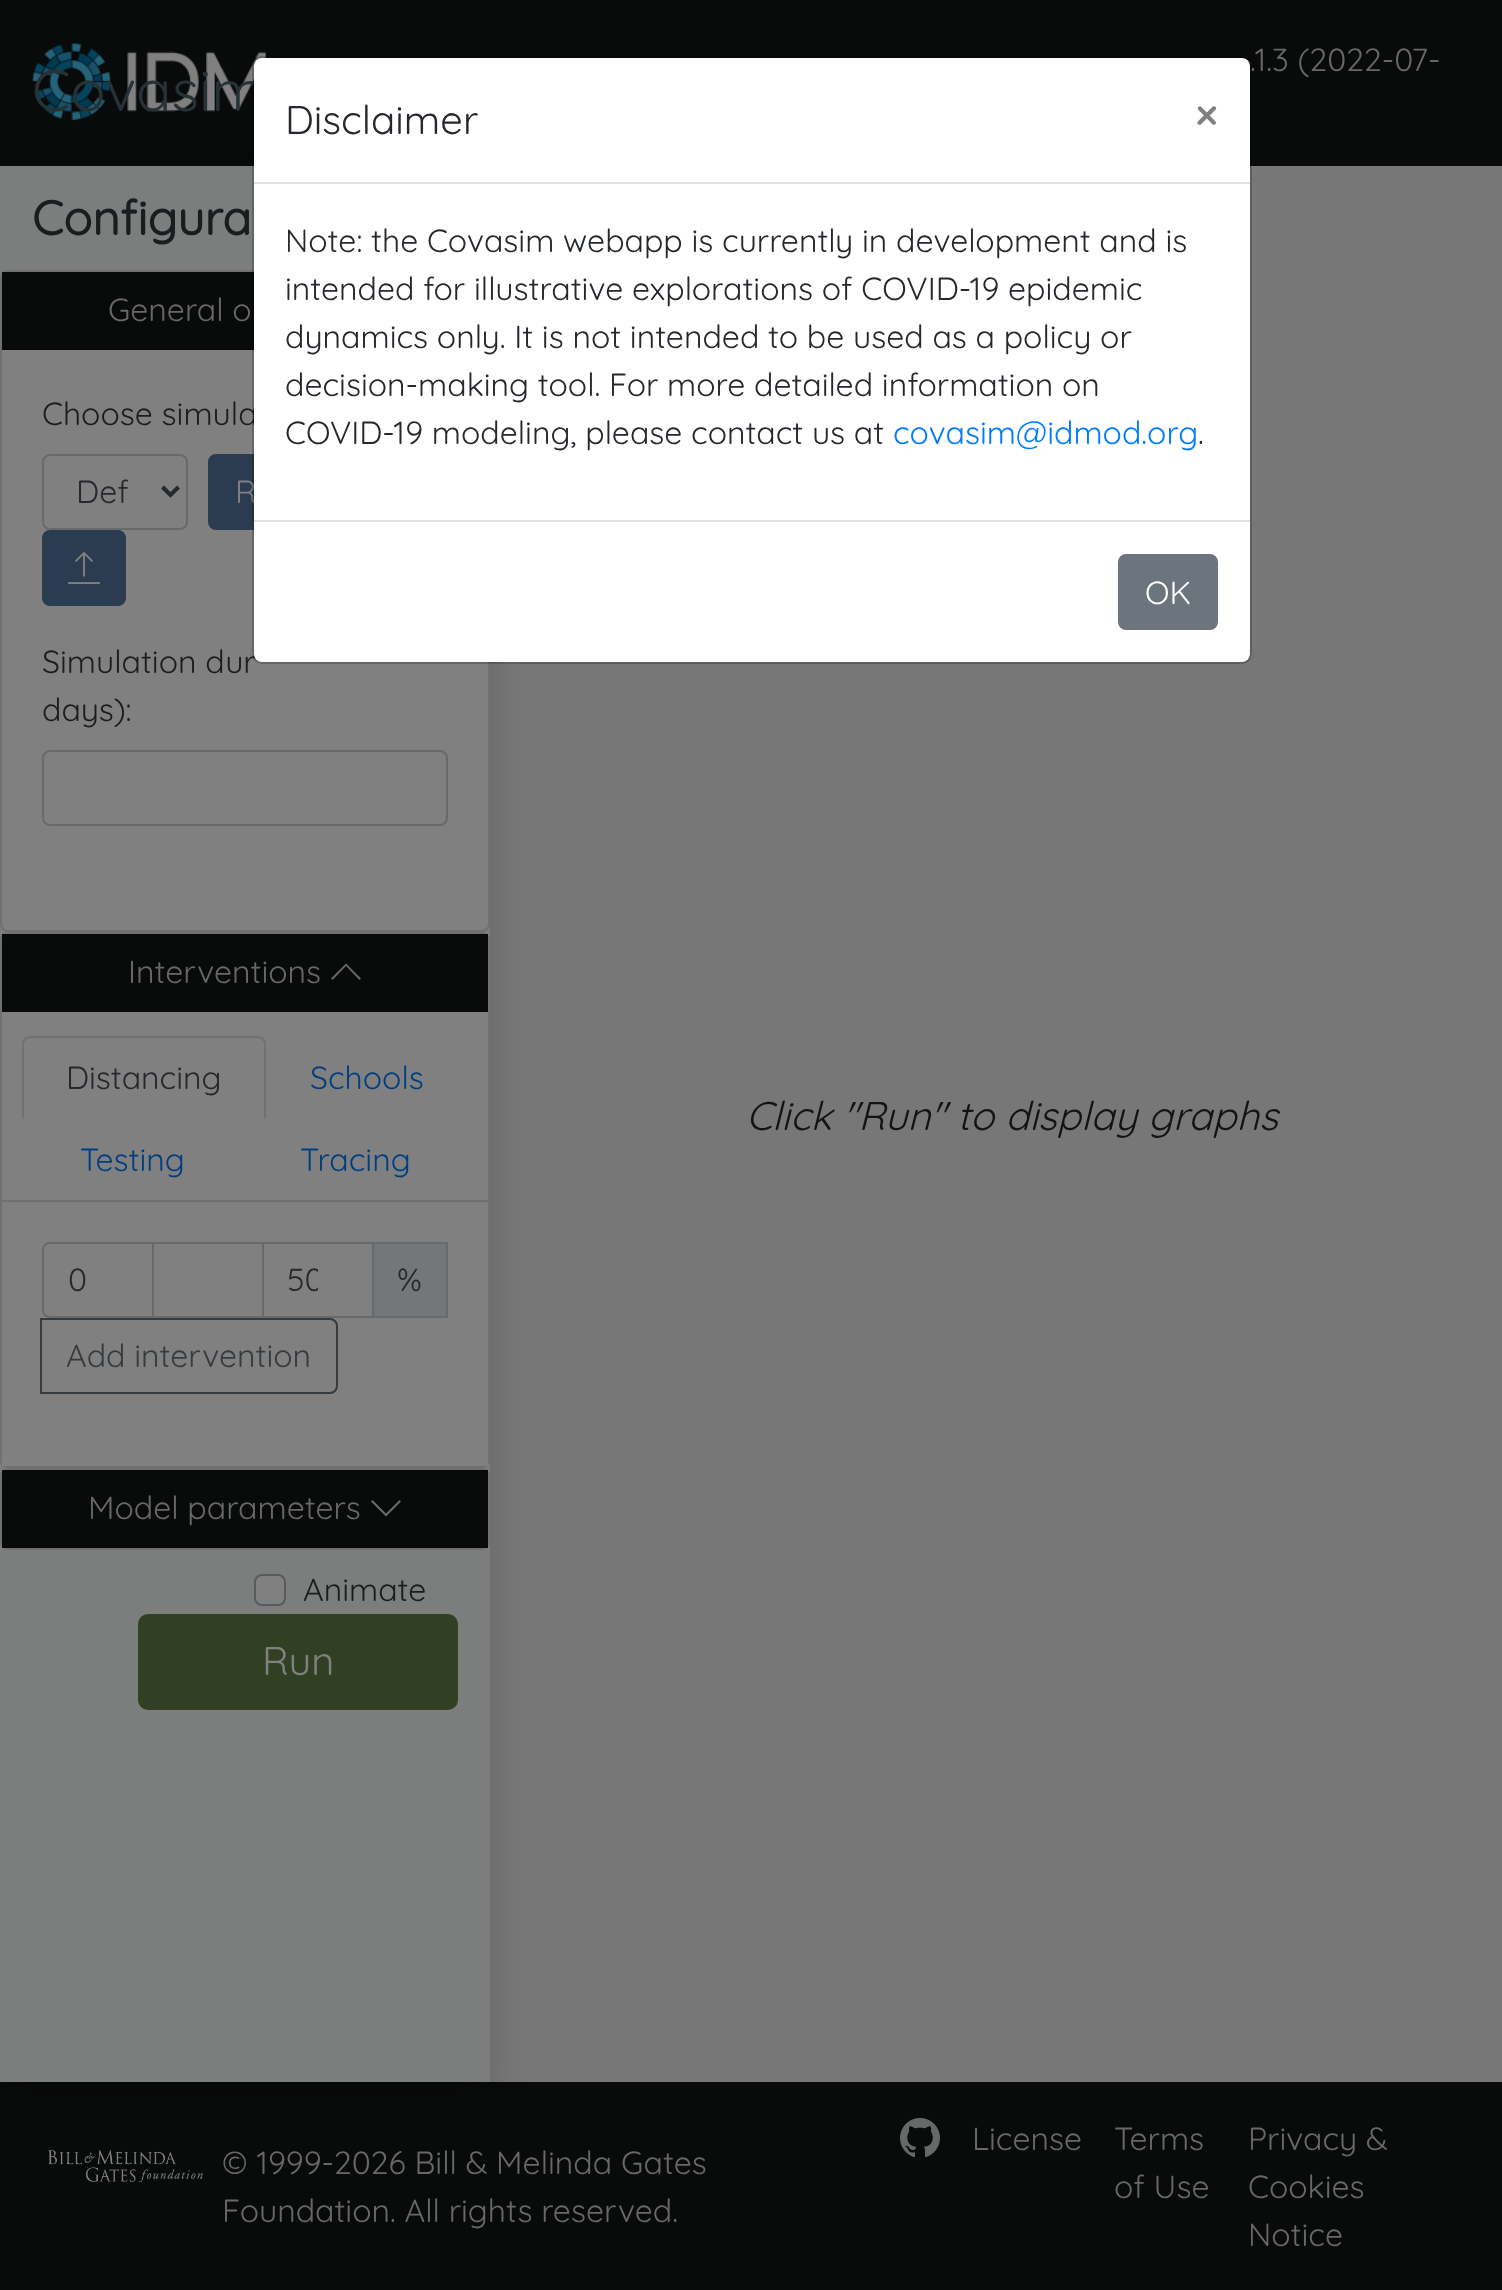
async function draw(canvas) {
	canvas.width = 1502;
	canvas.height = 2290;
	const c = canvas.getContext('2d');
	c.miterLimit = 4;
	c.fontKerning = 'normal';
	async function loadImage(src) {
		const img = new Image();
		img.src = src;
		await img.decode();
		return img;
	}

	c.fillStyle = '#777';
	c.fillRect(0, 0, 1502, 2290);
	c.fillStyle = '#090a0a';
	c.fillRect(0, 0, 1502, 166);
	c.font = '300 32px Quicksand';
	c.fillStyle = '#686868';
	c.fillText('.1.3 (2022-07-', 1250, 71);
	c.drawImage(await loadImage('img1.png'), 32, 43, 234, 77);
	c.font = '300 58.5px Quicksand';
	c.fillStyle = '#273237';
	c.fillText('Covasim', 32, 111);
	c.fillStyle = '#090a0a';
	c.fillRect(0, 2082, 1502, 208);
	c.fillStyle = '#00000026';
	c.filter = 'blur(16px)';
	c.beginPath();
	c.rect(0, 182, 490, 1916);
	c.fill();
	c.filter = 'none';
	c.fillStyle = '#7c7d7d';
	c.fillRect(0, 166, 490, 1916);
	c.font = 'bold 48px Quicksand';
	c.fillStyle = '#1a1d20';
	c.fillText('Configura', 32, 235);
	c.fillStyle = '#808080';
	c.beginPath();
	c.roundRect(0, 270, 490, 662, 8);
	c.fill();
	c.beginPath();
	c.roundRect(1, 271, 488, 660, 7);
	c.strokeStyle = '#0000001f';
	c.lineWidth = 2;
	c.stroke();
	c.fillStyle = '#090a0a';
	c.fillRect(2, 272, 252, 76);
	c.fillStyle = '#080909';
	c.fillRect(2, 348, 252, 2);
	c.font = '300 32px Quicksand';
	c.fillStyle = '#686868';
	c.fillText('General o', 108, 321);
	c.fillStyle = '#1a1d20';
	c.fillText('Choose simula', 42, 425);
	c.beginPath();
	c.roundRect(43, 455, 144, 74, 7);
	c.strokeStyle = '#676a6d';
	c.stroke();
	c.beginPath();
	c.moveTo(162.5, 487);
	c.lineTo(170.5, 495);
	c.lineTo(178.5, 487);
	c.strokeStyle = '#25282c';
	c.lineWidth = 4;
	c.stroke();
	c.fillStyle = '#25282c';
	c.fillText('Def', 76, 503);
	c.fillStyle = '#2b3c50';
	c.beginPath();
	c.roundRect(209, 455, 134, 74, 7);
	c.fill();
	c.strokeStyle = '#2b3c50';
	c.lineWidth = 2;
	c.stroke();
	c.fillStyle = '#808080';
	c.fillText('R', 235, 503);
	c.fillStyle = '#2b3c50';
	c.beginPath();
	c.roundRect(43, 531, 82, 74, 7);
	c.fill();
	c.stroke();
	c.drawImage(await loadImage('img2.png'), 68, 551, 32, 33);
	c.fillStyle = '#1a1d20';
	c.fillText('Simulation dur', 42, 673);
	c.fillText('days):', 42, 721);
	c.beginPath();
	c.roundRect(43, 751, 404, 74, 7);
	c.strokeStyle = '#676a6d';
	c.stroke();
	c.fillStyle = '#808080';
	c.beginPath();
	c.roundRect(0, 932, 490, 536, 8);
	c.fill();
	c.beginPath();
	c.roundRect(1, 933, 488, 534, 7);
	c.strokeStyle = '#0000001f';
	c.stroke();
	c.fillStyle = '#090a0a';
	c.fillRect(2, 934, 486, 76);
	c.fillStyle = '#080909';
	c.fillRect(2, 1010, 486, 2);
	c.fillStyle = '#686868';
	c.fillText('Interventions', 128, 983);
	c.beginPath();
	c.moveTo(361, 978.5);
	c.lineTo(359.5, 980);
	c.lineTo(346, 966);
	c.lineTo(332.5, 980);
	c.lineTo(331, 978.5);
	c.lineTo(346, 963.5);
	c.closePath();
	c.fill();
	c.fillStyle = '#808080';
	c.fillRect(2, 1461, 486, 5);
	c.fillStyle = '#707070';
	c.fillRect(2, 1200, 486, 2);
	c.fillStyle = '#6f7173';
	c.beginPath();
	c.moveTo(30, 1036);
	c.bezierCurveTo(28, 1036, 26, 1037, 24, 1038);
	c.lineTo(26, 1040);
	c.bezierCurveTo(27, 1039, 28, 1038, 30, 1038);
	c.lineTo(258, 1038);
	c.bezierCurveTo(260, 1038, 261, 1039, 262, 1040);
	c.lineTo(264, 1038);
	c.bezierCurveTo(262, 1037, 260, 1036, 258, 1036);
	c.closePath();
	c.fill();
	c.beginPath();
	c.moveTo(266, 1120);
	c.lineTo(266, 1044);
	c.bezierCurveTo(266, 1042, 265, 1040, 264, 1038);
	c.lineTo(262, 1040);
	c.lineTo(264, 1043);
	c.lineTo(264, 1118);
	c.closePath();
	c.fill();
	c.fillStyle = '#808080';
	c.beginPath();
	c.moveTo(266, 1120);
	c.lineTo(264, 1118);
	c.lineTo(24, 1118);
	c.lineTo(22, 1120);
	c.closePath();
	c.fill();
	c.fillStyle = '#6f7173';
	c.beginPath();
	c.moveTo(22, 1120);
	c.lineTo(24, 1118);
	c.lineTo(24, 1043);
	c.lineTo(26, 1040);
	c.lineTo(24, 1038);
	c.bezierCurveTo(23, 1040, 22, 1042, 22, 1044);
	c.closePath();
	c.fill();
	c.fillStyle = '#25282c';
	c.fillText('Distancing', 66, 1089);
	c.fillStyle = '#003e80';
	for (const [text, x, y] of [
		['Schools', 310, 1089],
		['Testing', 80, 1171],
		['Tracing', 300, 1171],
	]) {
		c.fillText(text, x, y);
	}
	c.beginPath();
	c.roundRect(43, 1243, 110, 74, [7, 0, 0, 7]);
	c.strokeStyle = '#676a6d';
	c.stroke();
	c.fillStyle = '#25282c';
	c.fillText('0', 68, 1291);
	c.strokeRect(153, 1243, 110, 74);
	c.fillStyle = '#757678';
	c.beginPath();
	c.rect(373, 1243, 74, 74);
	c.fill();
	c.stroke();
	c.strokeRect(263, 1243, 110, 74);
	c.save();
	c.beginPath();
	c.rect(288, 1260, 30, 40);
	c.clip();
	c.fillStyle = '#25282c';
	c.fillText('50', 287, 1291);
	c.restore();
	c.fillStyle = '#25282c';
	c.fillText('%', 397, 1291);
	c.beginPath();
	c.roundRect(41, 1319, 296, 74, [0, 7, 7, 0]);
	c.strokeStyle = '#363b3f';
	c.stroke();
	c.fillStyle = '#363b3f';
	c.fillText('Add intervention', 66, 1367);
	c.fillStyle = '#808080';
	c.beginPath();
	c.roundRect(0, 1468, 490, 82, 8);
	c.fill();
	c.beginPath();
	c.roundRect(1, 1469, 488, 80, 7);
	c.strokeStyle = '#0000001f';
	c.stroke();
	c.fillStyle = '#090a0a';
	c.fillRect(2, 1470, 486, 76);
	c.fillStyle = '#080909';
	c.fillRect(2, 1546, 486, 2);
	c.fillStyle = '#686868';
	c.fillText('Model parameters', 88, 1519);
	c.beginPath();
	c.moveTo(401, 1501.5);
	c.lineTo(386, 1516.5);
	c.lineTo(371, 1501.5);
	c.lineTo(372.5, 1500);
	c.lineTo(386, 1513.5);
	c.lineTo(399.5, 1500);
	c.closePath();
	c.fill();
	c.fillStyle = '#808080';
	c.beginPath();
	c.roundRect(255, 1575, 30, 30, 7);
	c.fill();
	c.strokeStyle = '#575b5f';
	c.stroke();
	c.fillStyle = '#1a1d20';
	c.fillText('Animate', 303, 1601);
	c.fillStyle = '#314022';
	c.beginPath();
	c.roundRect(139, 1615, 318, 94, 9);
	c.fill();
	c.strokeStyle = '#314022';
	c.stroke();
	c.font = '300 40px Quicksand';
	c.fillStyle = '#808080';
	c.fillText('Run', 262, 1675);
	c.font = 'italic 300 40px Quicksand';
	c.fillStyle = '#111315';
	c.fillText('Click "Run" to display graphs', 746, 1130);
	c.drawImage(await loadImage('img3.png'), 48, 2150, 155, 32);
	c.font = '300 32px Quicksand';
	c.fillStyle = '#686868';
	c.fillText('© 1999-2026 Bill & Melinda Gates', 222, 2174);
	c.fillText('Foundation. All rights reserved.', 222, 2222);
	c.drawImage(await loadImage('img4.png'), 900, 2118, 40, 39);
	for (const [text, x, y] of [
		['License', 972, 2150],
		['Terms', 1114, 2150],
		['of Use', 1114, 2198],
		['Privacy &', 1248, 2150],
		['Cookies', 1248, 2198],
		['Notice', 1248, 2246],
	]) {
		c.fillText(text, x, y);
	}
	c.fillStyle = '#fff';
	c.beginPath();
	c.roundRect(254, 58, 996, 604, 8);
	c.fill();
	c.beginPath();
	c.roundRect(253, 57, 998, 606, 9);
	c.strokeStyle = '#00000033';
	c.stroke();
	c.fillStyle = '#dee2e6';
	c.fillRect(254, 182, 996, 2);
	c.font = '300 40px Quicksand';
	c.fillStyle = '#25282c';
	c.fillText('Disclaimer', 285, 134);
	c.font = 'bold 48px Quicksand';
	c.fillStyle = '#808080';
	c.fillText('×', 1195, 132);
	c.font = '300 32px Quicksand';
	c.fillStyle = '#25282c';
	for (const [text, x, y] of [
		['Note: the Covasim webapp is currently in development and is', 285, 252],
		['intended for illustrative explorations of COVID-19 epidemic', 285, 300],
		['dynamics only. It is not intended to be used as a policy or', 285, 348],
		['decision-making tool. For more detailed information on', 285, 396],
		['COVID-19 modeling, please contact us at', 285, 444],
	]) {
		c.fillText(text, x, y);
	}
	c.fillStyle = '#007bff';
	c.fillText('covasim@idmod.org', 893, 444);
	c.fillStyle = '#25282c';
	c.fillText('.', 1198, 444);
	c.fillStyle = '#dee2e6';
	c.fillRect(254, 520, 996, 2);
	c.fillStyle = '#6c757d';
	c.beginPath();
	c.roundRect(1119, 555, 98, 74, 7);
	c.fill();
	c.strokeStyle = '#6c757d';
	c.stroke();
	c.fillStyle = '#fff';
	c.fillText('OK', 1145, 604);
}

draw(document.querySelector('canvas'));
